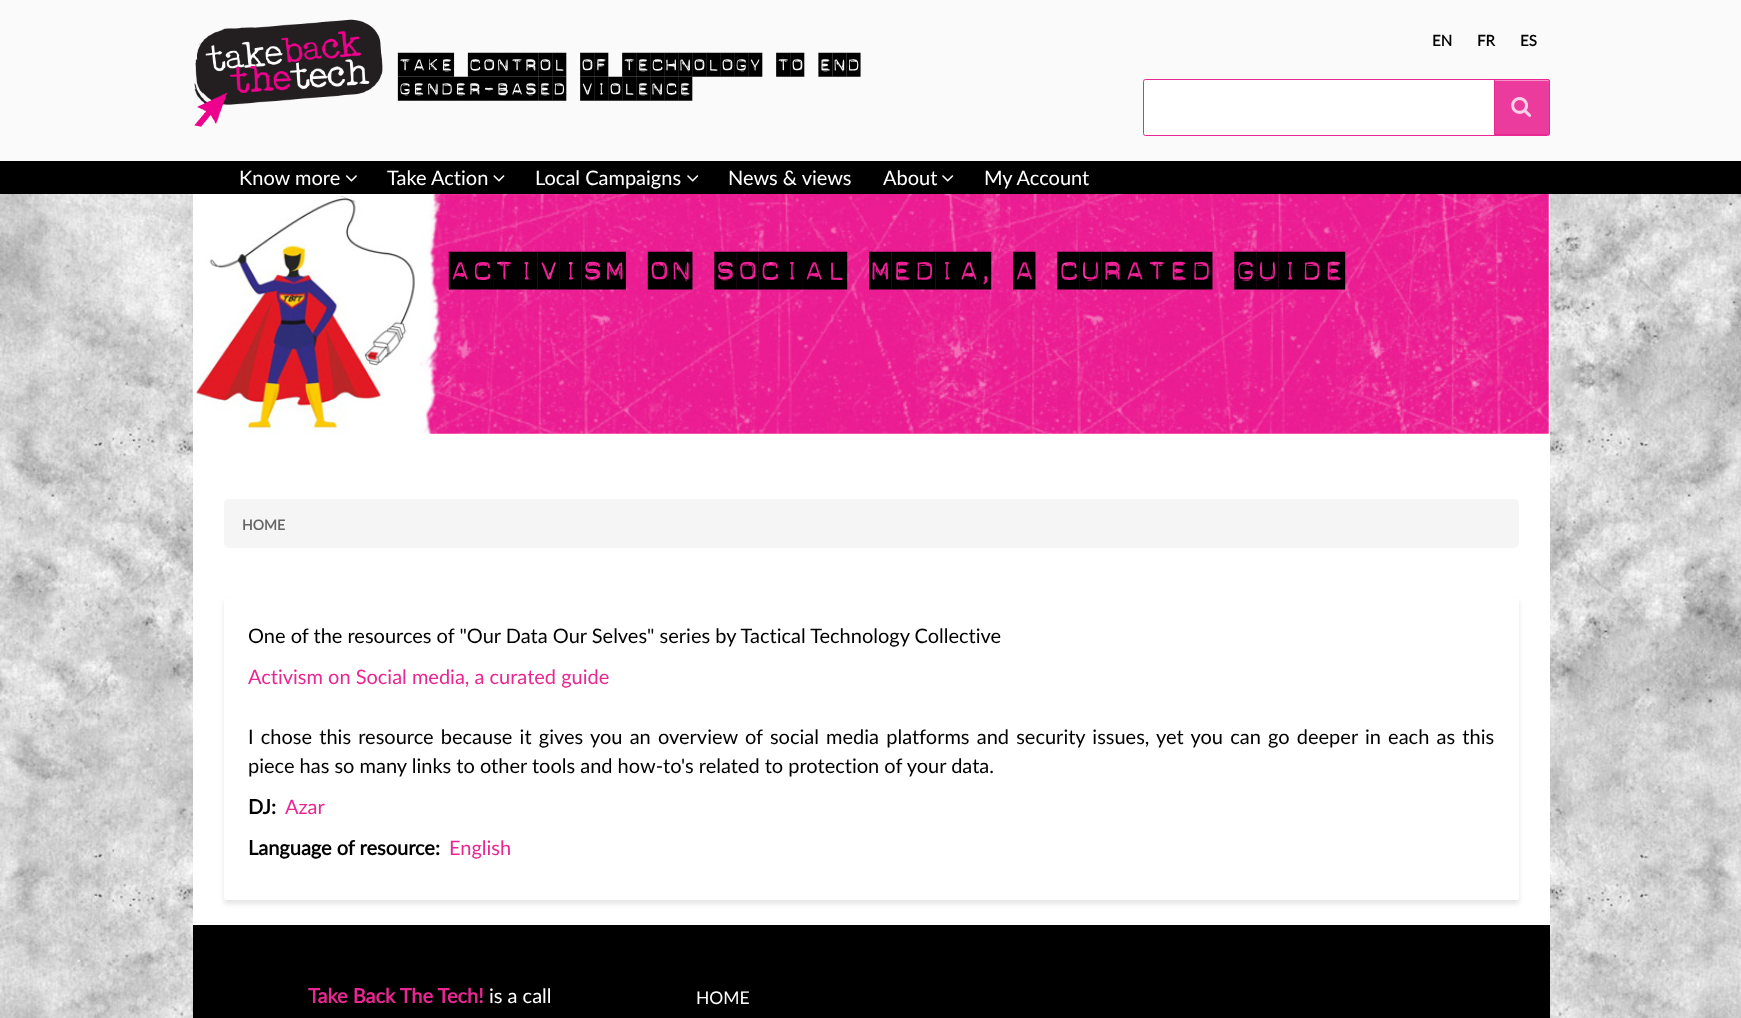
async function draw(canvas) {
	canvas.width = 1741;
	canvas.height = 1018;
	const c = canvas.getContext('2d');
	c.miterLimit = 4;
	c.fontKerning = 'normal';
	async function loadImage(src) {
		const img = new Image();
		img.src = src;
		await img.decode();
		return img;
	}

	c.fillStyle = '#fff';
	c.fillRect(0, 0, 1741, 1018);
	c.drawImage(await loadImage('img1.png'), 0, 194, 1741, 824);
	c.fillStyle = '#fafafa';
	c.fillRect(0, 0, 1741, 161);
	c.font = 'bold 15px Lato';
	c.fillStyle = '#000';
	for (const [text, x, y] of [
		['EN', 1432, 46],
		['FR', 1477, 46],
		['ES', 1520, 46],
	]) {
		c.fillText(text, x, y);
	}
	c.fillStyle = '#fff';
	c.beginPath();
	c.roundRect(1143.5, 79.5, 406, 56, 2);
	c.fill();
	c.strokeStyle = '#e92792';
	c.stroke();
	c.fillStyle = '#e92792e6';
	c.beginPath();
	c.roundRect(1494, 79, 56, 56, [0, 2.5, 2.5, 0]);
	c.fill();
	c.drawImage(await loadImage('img2.png'), 1511, 97, 21, 20);
	c.fillStyle = '#ffffff73';
	c.beginPath();
	c.moveTo(1495, 81);
	c.lineTo(1548, 81);
	c.lineTo(1549, 82);
	c.lineTo(1549, 81);
	c.bezierCurveTo(1549, 80, 1549, 80, 1548, 80);
	c.lineTo(1495, 80);
	c.closePath();
	c.fill();
	c.beginPath();
	c.roundRect(1494.5, 79.5, 55, 55, [0, 2, 2, 0]);
	c.strokeStyle = '#e92792e6';
	c.stroke();
	c.drawImage(await loadImage('img3.png'), 194, 19, 189, 108);
	c.font = '900 23.75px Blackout';
	c.fillStyle = '#000';
	c.fillText('TAKE CONTROL OF TECHNOLOGY TO END', 398, 72);
	c.fillText('GENDER-BASED VIOLENCE', 398, 96);
	c.fillRect(0, 161, 1741, 33);
	c.font = '20px Lato';
	c.fillStyle = '#fff';
	c.fillText('Know more', 239, 185);
	c.drawImage(await loadImage('img4.png'), 345, 175, 12, 7);
	c.fillText('Take Action', 387, 185);
	c.drawImage(await loadImage('img5.png'), 493, 175, 12, 7);
	c.fillText('Local Campaigns', 535, 185);
	c.drawImage(await loadImage('img6.png'), 687, 175, 12, 7);
	c.fillText('News & views', 728, 185);
	c.fillText('About', 883, 185);
	c.drawImage(await loadImage('img6.png'), 942, 175, 12, 7);
	c.fillText('My Account', 984, 185);
	c.fillRect(193, 194, 1357, 731);
	c.drawImage(await loadImage('img7.png'), 195, 194, 224, 240);
	c.drawImage(await loadImage('img8.png'), 418, 194, 1131, 240);
	c.font = '900 37.5px Blackout';
	c.fillStyle = '#000';
	c.fillText('ACTIVISM ON SOCIAL MEDIA, A CURATED GUIDE', 449, 282);
	c.fillStyle = '#f5f5f5';
	c.beginPath();
	c.roundRect(224, 499, 1295, 49, 5);
	c.fill();
	c.font = 'bold 14px Lato';
	c.fillStyle = '#666';
	c.fillText('HOME', 242, 530);
	c.fillStyle = '#0000001a';
	c.filter = 'blur(2.5px)';
	c.beginPath();
	c.roundRect(224, 601, 1295, 303, 2.5);
	c.fill();
	c.filter = 'none';
	c.fillStyle = '#fff';
	c.beginPath();
	c.roundRect(224, 598, 1295, 302, 2.5);
	c.fill();
	c.font = '20px Lato';
	c.fillStyle = '#000';
	c.fillText('One of the resources of "Our Data Our Selves" series by Tactical Technology Collective', 248, 643);
	c.fillStyle = '#e92792';
	c.fillText('Activism on Social media, a curated guide', 248, 684);
	c.wordSpacing = '2.1px';
	c.fillStyle = '#000';
	c.fillText('I chose this resource because it gives you an overview of social media platforms and security issues, yet you can go deeper in each as this', 248, 744);
	c.wordSpacing = '0px';
	c.fillText('piece has so many links to other tools and how-to\'s related to protection of your data.', 248, 773);
	c.font = 'bold 20px Lato';
	c.fillText('DJ:', 248, 814);
	c.font = '20px Lato';
	c.fillStyle = '#e92792';
	c.fillText('Azar', 285, 814);
	c.font = 'bold 20px Lato';
	c.fillStyle = '#000';
	c.fillText('Language of resource:', 248, 855);
	c.font = '20px Lato';
	c.fillStyle = '#e92792';
	c.fillText('English', 449, 855);
	c.fillStyle = '#000';
	c.fillRect(193, 925, 1357, 93);
	c.font = 'bold 20px Lato';
	c.fillStyle = '#e92792';
	c.fillText('Take Back The Tech!', 308, 1003);
	c.font = '20px Lato';
	c.fillStyle = '#fff';
	c.fillText('is a call', 489, 1003);
	c.font = '17.5px Lato';
	c.fillText('HOME', 696, 1004);
}

draw(document.querySelector('canvas'));
